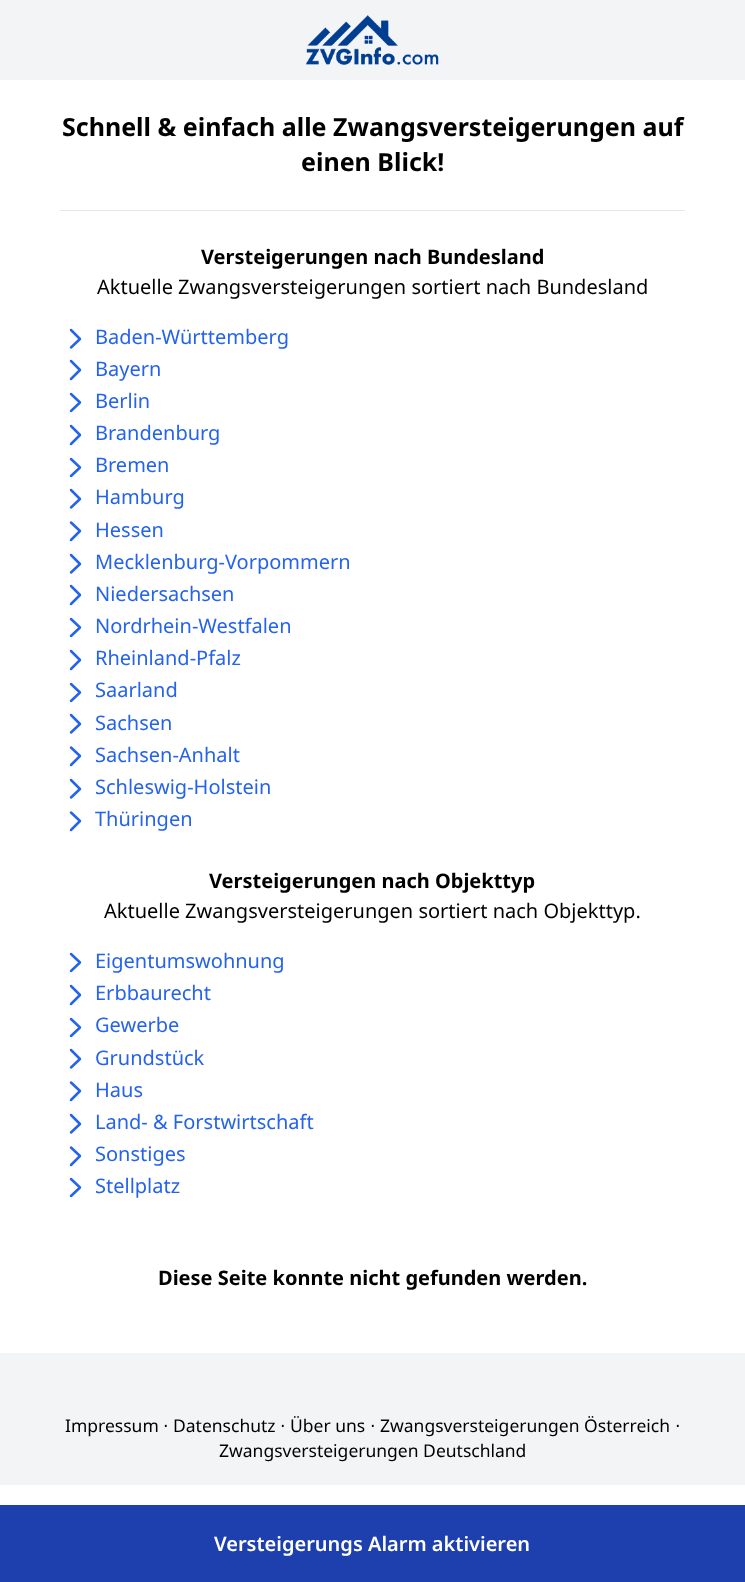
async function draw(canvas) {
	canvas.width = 745;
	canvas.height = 1582;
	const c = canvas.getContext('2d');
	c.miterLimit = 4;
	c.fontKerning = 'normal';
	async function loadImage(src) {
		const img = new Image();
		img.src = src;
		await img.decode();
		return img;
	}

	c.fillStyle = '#fff';
	c.fillRect(0, 0, 745, 1582);
	c.fillStyle = '#f3f4f6';
	c.fillRect(0, 0, 745, 80);
	c.drawImage(await loadImage('img1.png'), 306, 15, 133, 50);
	c.font = 'bold 25px Noto Sans';
	c.fillStyle = '#000';
	c.fillText('Schnell & einfach alle Zwangsversteigerungen auf', 62, 136);
	c.fillText('einen Blick!', 301, 171);
	c.fillStyle = '#e5e7eb';
	c.fillRect(60, 210, 625, 1);
	c.font = 'bold 20px Noto Sans';
	c.fillStyle = '#000';
	c.fillText('Versteigerungen nach Bundesland', 201, 264);
	c.font = '20px Noto Sans';
	c.fillText('Aktuelle Zwangsversteigerungen sortiert nach Bundesland', 97, 294);
	c.beginPath();
	c.moveTo(71, 330);
	c.lineTo(80, 339);
	c.lineTo(71, 347.5);
	c.moveTo(71, 361);
	c.lineTo(80, 370);
	c.lineTo(71, 379);
	c.strokeStyle = '#2563eb';
	c.lineWidth = 2.5;
	c.lineCap = 'round';
	c.lineJoin = 'round';
	c.stroke();
	c.fillStyle = '#2563eb';
	c.fillText('Baden-Württemberg', 95, 344);
	c.fillText('Bayern', 95, 376);
	c.beginPath();
	c.moveTo(71, 394);
	c.lineTo(80, 402.5);
	c.lineTo(71, 411);
	c.moveTo(71, 426);
	c.lineTo(80, 435);
	c.lineTo(71, 444);
	c.stroke();
	c.fillText('Berlin', 95, 408);
	c.fillText('Brandenburg', 95, 440);
	c.beginPath();
	c.moveTo(71, 459);
	c.lineTo(80, 467.5);
	c.lineTo(71, 476);
	c.moveTo(71, 490);
	c.lineTo(80, 499);
	c.lineTo(71, 507.5);
	c.stroke();
	c.fillText('Bremen', 95, 472);
	c.fillText('Hamburg', 95, 504);
	c.beginPath();
	c.moveTo(71, 522.5);
	c.lineTo(80, 531);
	c.lineTo(71, 540);
	c.moveTo(71, 555);
	c.lineTo(80, 564);
	c.lineTo(71, 572.5);
	c.stroke();
	c.fillText('Hessen', 95, 537);
	c.fillText('Mecklenburg-Vorpommern', 95, 569);
	c.beginPath();
	c.moveTo(71, 586);
	c.lineTo(80, 595);
	c.lineTo(71, 604);
	c.moveTo(71, 619);
	c.lineTo(80, 627.5);
	c.lineTo(71, 636);
	c.stroke();
	c.fillText('Niedersachsen', 95, 601);
	c.fillText('Nordrhein-Westfalen', 95, 633);
	c.beginPath();
	c.moveTo(71, 651);
	c.lineTo(80, 660);
	c.lineTo(71, 669);
	c.moveTo(71, 684);
	c.lineTo(80, 692.5);
	c.lineTo(71, 701);
	c.stroke();
	c.fillText('Rheinland-Pfalz', 95, 665);
	c.fillText('Saarland', 95, 697);
	c.beginPath();
	c.moveTo(71, 715);
	c.lineTo(80, 724);
	c.lineTo(71, 732.5);
	c.moveTo(71, 747.5);
	c.lineTo(80, 756);
	c.lineTo(71, 765);
	c.stroke();
	c.fillText('Sachsen', 95, 730);
	c.fillText('Sachsen-Anhalt', 95, 762);
	c.beginPath();
	c.moveTo(71, 780);
	c.lineTo(80, 789);
	c.lineTo(71, 797.5);
	c.moveTo(71, 812.5);
	c.lineTo(80, 821);
	c.lineTo(71, 830);
	c.stroke();
	c.fillText('Schleswig-Holstein', 95, 794);
	c.fillText('Thüringen', 95, 826);
	c.font = 'bold 20px Noto Sans';
	c.fillStyle = '#000';
	c.fillText('Versteigerungen nach Objekttyp', 209, 888);
	c.font = '20px Noto Sans';
	c.fillText('Aktuelle Zwangsversteigerungen sortiert nach Objekttyp.', 104, 918);
	c.beginPath();
	c.moveTo(71, 954);
	c.lineTo(80, 962.5);
	c.lineTo(71, 971);
	c.moveTo(71, 986);
	c.lineTo(80, 995);
	c.lineTo(71, 1004);
	c.stroke();
	c.fillStyle = '#2563eb';
	c.fillText('Eigentumswohnung', 95, 968);
	c.fillText('Erbbaurecht', 95, 1000);
	c.beginPath();
	c.moveTo(71, 1019);
	c.lineTo(80, 1027.5);
	c.lineTo(71, 1036);
	c.moveTo(71, 1050);
	c.lineTo(80, 1059);
	c.lineTo(71, 1067.5);
	c.stroke();
	c.fillText('Gewerbe', 95, 1032);
	c.fillText('Grundstück', 95, 1065);
	c.beginPath();
	c.moveTo(71, 1082.5);
	c.lineTo(80, 1091);
	c.lineTo(71, 1100);
	c.moveTo(71, 1115);
	c.lineTo(80, 1124);
	c.lineTo(71, 1132.5);
	c.stroke();
	c.fillText('Haus', 95, 1097);
	c.fillText('Land- & Forstwirtschaft', 95, 1129);
	c.beginPath();
	c.moveTo(71, 1147.5);
	c.lineTo(80, 1156);
	c.lineTo(71, 1165);
	c.moveTo(71, 1179);
	c.lineTo(80, 1187.5);
	c.lineTo(71, 1196);
	c.stroke();
	c.fillText('Sonstiges', 95, 1161);
	c.fillText('Stellplatz', 95, 1193);
	c.font = 'bold 20px Noto Sans';
	c.fillStyle = '#000';
	c.fillText('Diese Seite konnte nicht gefunden werden.', 158, 1285);
	c.fillStyle = '#1e40af';
	c.fillRect(0, 1505, 745, 77);
	c.font = '600 20px Noto Sans';
	c.fillStyle = '#fff';
	c.fillText('Versteigerungs Alarm aktivieren', 214, 1551);
	c.fillStyle = '#f3f4f6';
	c.fillRect(0, 1353, 745, 132);
	c.font = '17.5px Noto Sans';
	c.fillStyle = '#000';
	c.fillText('Impressum', 65, 1432);
	c.font = '17.5px DejaVu Sans';
	c.fillText('⋅', 163, 1432);
	c.font = '17.5px Noto Sans';
	c.fillText('Datenschutz', 173, 1432);
	c.font = '17.5px DejaVu Sans';
	c.fillText('⋅', 280, 1432);
	c.font = '17.5px Noto Sans';
	c.fillText('Über uns', 290, 1432);
	c.font = '17.5px DejaVu Sans';
	c.fillText('⋅', 370, 1432);
	c.font = '17.5px Noto Sans';
	c.fillText('Zwangsversteigerungen Österreich', 380, 1432);
	c.font = '17.5px DejaVu Sans';
	c.fillText('⋅', 675, 1432);
	c.font = '17.5px Noto Sans';
	c.fillText('Zwangsversteigerungen Deutschland', 219, 1457);
}

draw(document.querySelector('canvas'));
